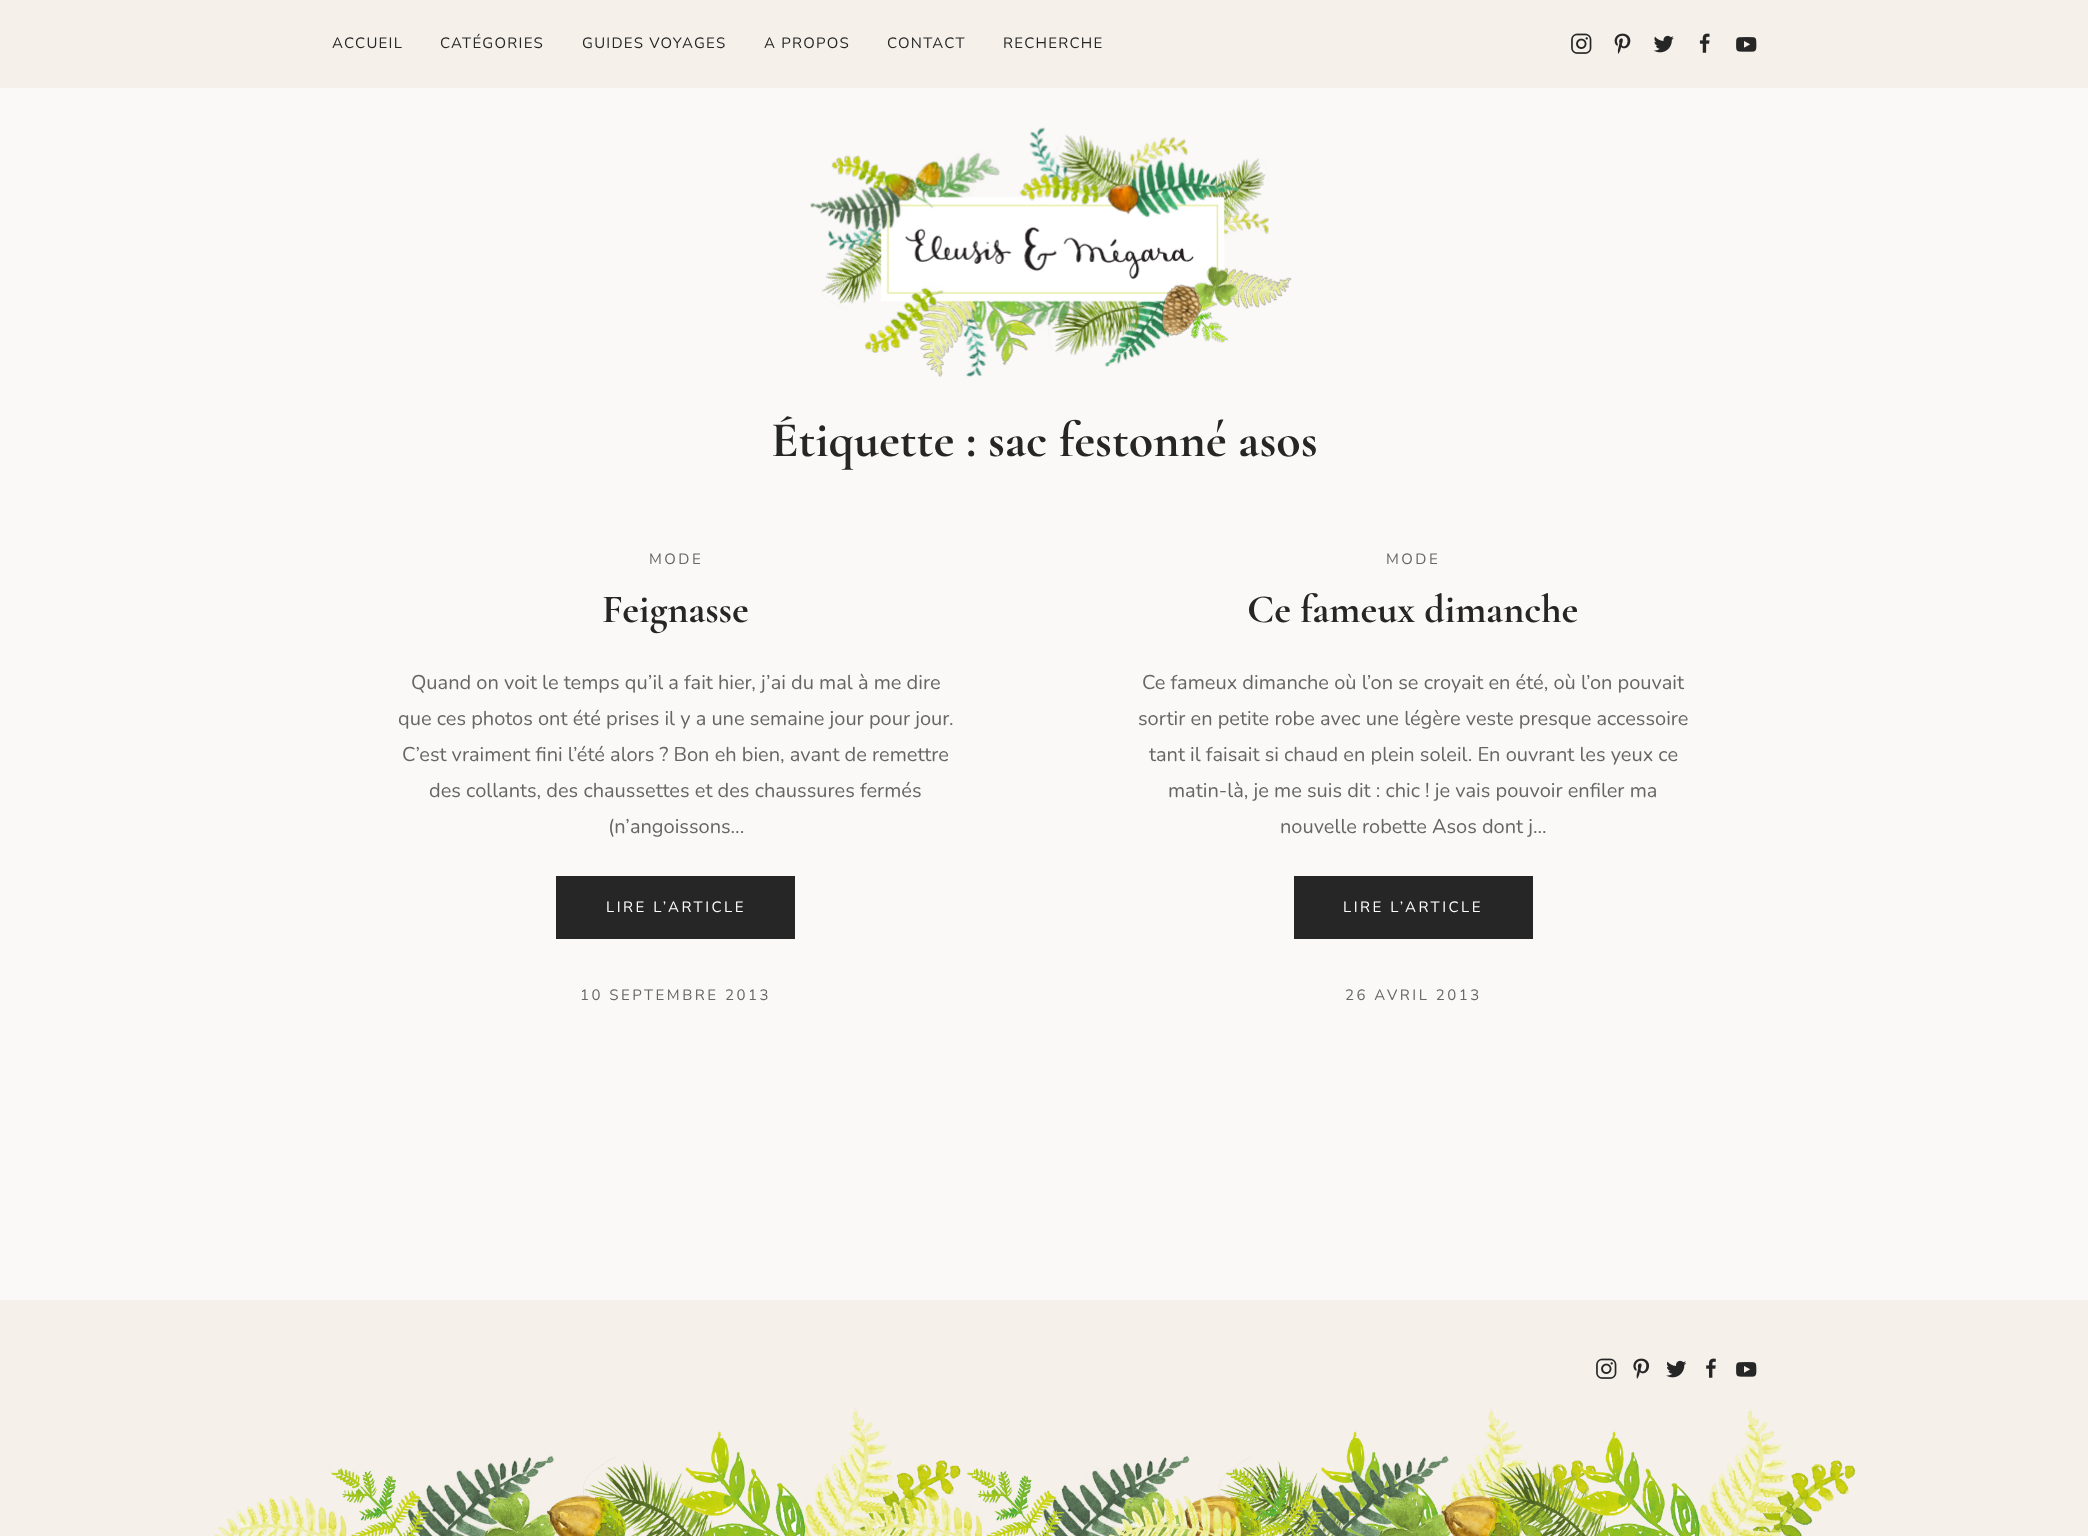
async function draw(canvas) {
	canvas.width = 2088;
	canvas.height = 1536;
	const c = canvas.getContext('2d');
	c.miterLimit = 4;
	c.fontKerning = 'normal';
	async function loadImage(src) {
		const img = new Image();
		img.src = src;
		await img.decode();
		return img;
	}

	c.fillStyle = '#faf9f7';
	c.fillRect(0, 0, 2088, 1536);
	c.fillStyle = '#f5f0ea';
	c.fillRect(0, 0, 2088, 88);
	c.letterSpacing = '1.25px';
	c.font = '15px Nunito';
	c.fillStyle = '#262626';
	for (const [text, x, y] of [
		['ACCUEIL', 332, 48],
		['CATÉGORIES', 440, 48],
		['GUIDES VOYAGES', 582, 48],
		['A PROPOS', 764, 48],
		['CONTACT', 887, 48],
		['RECHERCHE', 1003, 48],
	]) {
		c.fillText(text, x, y);
	}
	c.drawImage(await loadImage('img1.png'), 1571, 33, 21, 21);
	c.drawImage(await loadImage('img2.png'), 1614, 33, 17, 21);
	c.drawImage(await loadImage('img3.png'), 1653, 35, 21, 18);
	c.drawImage(await loadImage('img4.png'), 1699, 33, 11, 20);
	c.drawImage(await loadImage('img5.png'), 1736, 37, 21, 15);
	c.drawImage(await loadImage('img6.png'), 810, 127, 482, 250);
	c.letterSpacing = '0px';
	c.font = '300 50px Cormorant Garamond';
	c.fillText('Étiquette : sac festonné asos', 771, 456);
	c.letterSpacing = '2.5px';
	c.font = '15px Nunito';
	c.fillStyle = '#666';
	c.fillText('MODE', 649, 564);
	c.letterSpacing = '0px';
	c.font = '300 40px Cormorant Garamond';
	c.fillStyle = '#262626';
	c.fillText('Feignasse', 602, 622);
	c.font = '20px Nunito';
	c.fillStyle = '#666';
	for (const [text, x, y] of [
		['Quand on voit le temps qu’il a fait hier, j’ai du mal à me dire', 411, 689],
		['que ces photos ont été prises il y a une semaine jour pour jour.', 398, 725],
		['C’est vraiment fini l’été alors ? Bon eh bien, avant de remettre', 402, 761],
		['des collants, des chaussettes et des chaussures fermés', 429, 797],
		['(n’angoissons...', 608, 833],
	]) {
		c.fillText(text, x, y);
	}
	c.fillStyle = '#262626';
	c.fillRect(556, 876, 239, 63);
	c.letterSpacing = '2.5px';
	c.font = '15px Nunito';
	c.fillStyle = '#fff';
	c.fillText('LIRE L’ARTICLE', 606, 912);
	c.fillStyle = '#666';
	c.fillText('10 SEPTEMBRE 2013', 580, 1000);
	c.fillText('MODE', 1386, 564);
	c.letterSpacing = '0px';
	c.font = '300 40px Cormorant Garamond';
	c.fillStyle = '#262626';
	c.fillText('Ce fameux dimanche', 1247, 622);
	c.font = '20px Nunito';
	c.fillStyle = '#666';
	for (const [text, x, y] of [
		['Ce fameux dimanche où l’on se croyait en été, où l’on pouvait', 1142, 689],
		['sortir en petite robe avec une légère veste presque accessoire', 1138, 725],
		['tant il faisait si chaud en plein soleil. En ouvrant les yeux ce', 1149, 761],
		['matin-là, je me suis dit : chic ! je vais pouvoir enfiler ma', 1168, 797],
		['nouvelle robette Asos dont j...', 1280, 833],
	]) {
		c.fillText(text, x, y);
	}
	c.fillStyle = '#262626';
	c.fillRect(1294, 876, 239, 63);
	c.letterSpacing = '2.5px';
	c.font = '15px Nunito';
	c.fillStyle = '#fff';
	c.fillText('LIRE L’ARTICLE', 1343, 912);
	c.fillStyle = '#666';
	c.fillText('26 AVRIL 2013', 1345, 1000);
	c.fillStyle = '#f5f0ea';
	c.fillRect(0, 1300, 2088, 236);
	c.drawImage(await loadImage('img7.png'), 214, 1408, 1642, 128);
	c.drawImage(await loadImage('img1.png'), 1596, 1358, 21, 21);
	c.drawImage(await loadImage('img8.png'), 1633, 1358, 17, 21);
	c.drawImage(await loadImage('img9.png'), 1666, 1360, 21, 18);
	c.drawImage(await loadImage('img10.png'), 1706, 1358, 10, 20);
	c.drawImage(await loadImage('img5.png'), 1736, 1362, 21, 15);
}

draw(document.querySelector('canvas'));
